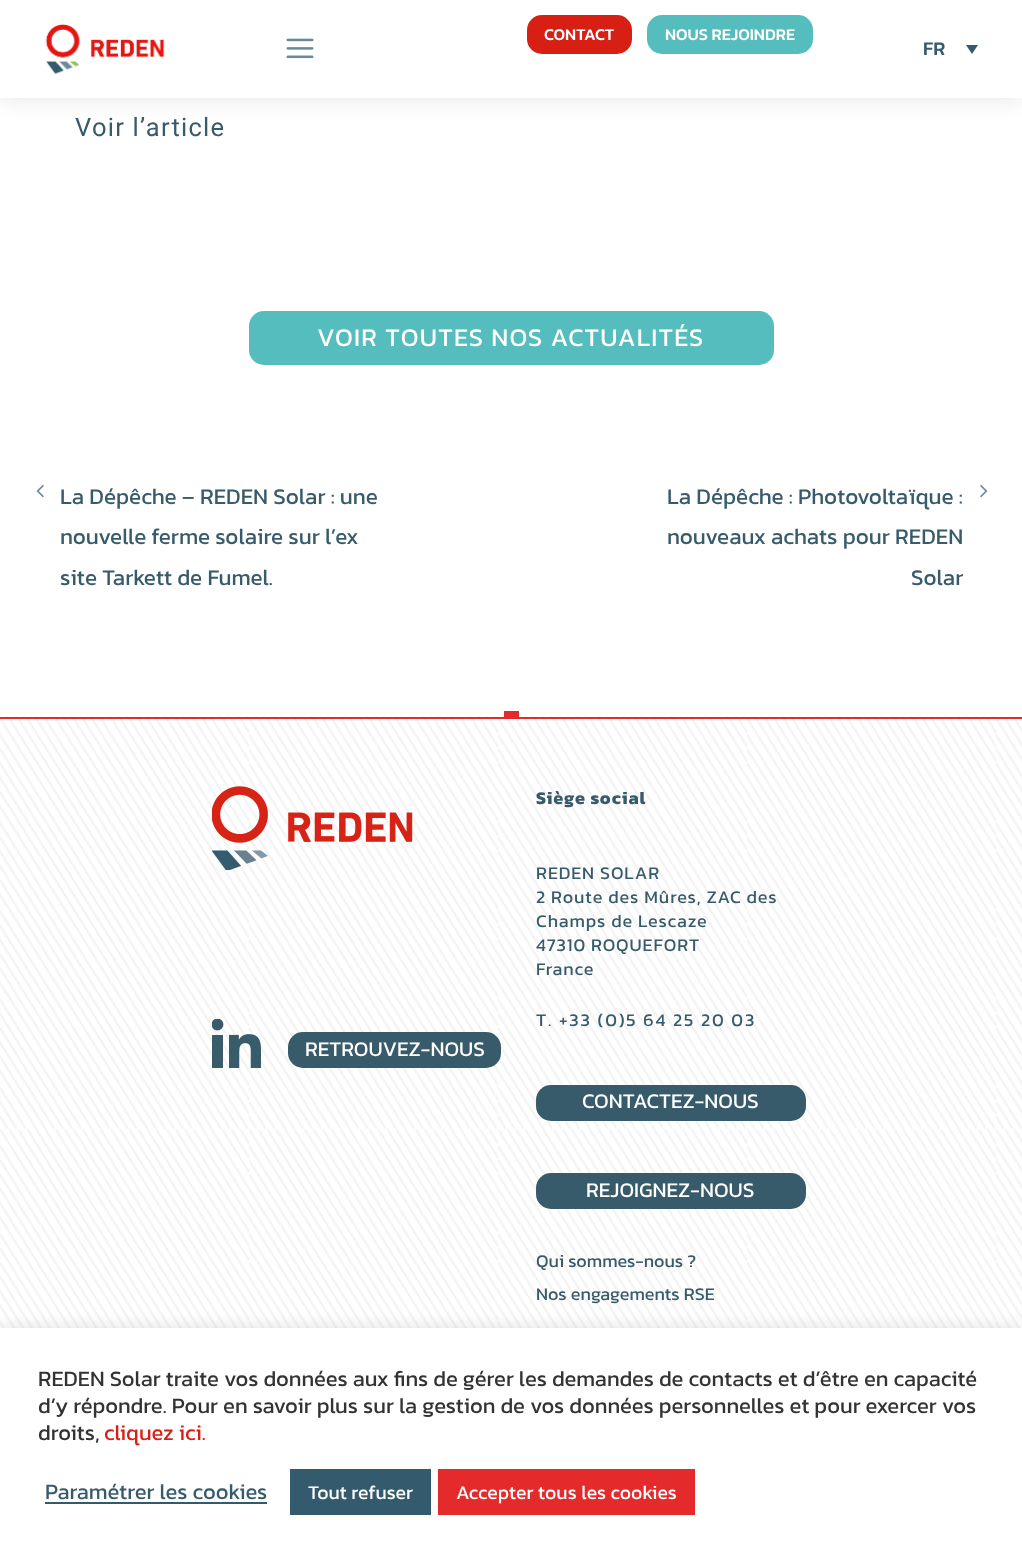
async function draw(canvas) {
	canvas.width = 1022;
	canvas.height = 1559;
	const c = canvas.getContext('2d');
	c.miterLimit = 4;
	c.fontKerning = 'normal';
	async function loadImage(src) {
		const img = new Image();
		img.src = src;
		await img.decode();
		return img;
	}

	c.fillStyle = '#fff';
	c.fillRect(0, 0, 1022, 1559);
	c.fillStyle = '#0000001a';
	c.filter = 'blur(11px)';
	c.beginPath();
	c.rect(0, 2, 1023, 97);
	c.fill();
	c.filter = 'none';
	c.fillStyle = '#fff';
	c.fillRect(0, 0, 1022, 98);
	c.drawImage(await loadImage('img1.png'), 45, 24, 120, 50);
	c.fillStyle = '#d71f13';
	c.beginPath();
	c.roundRect(527, 15, 105, 39, 15);
	c.fill();
	c.font = '500 16.5px Kanit';
	c.fillStyle = '#fff';
	c.fillText('CONTACT', 544, 40);
	c.fillStyle = '#55bdbe';
	c.beginPath();
	c.roundRect(647, 15, 166, 39, 15);
	c.fill();
	c.fillStyle = '#fff';
	c.fillText('NOUS REJOINDRE', 665, 40);
	c.drawImage(await loadImage('img2.png'), 286, 38, 28, 21);
	c.font = '500 19.5px Kanit';
	c.fillStyle = '#385b6b';
	c.fillText('FR', 923, 55);
	c.fillStyle = '#335b6d';
	c.beginPath();
	c.moveTo(966, 45);
	c.lineTo(978, 45);
	c.lineTo(972, 54);
	c.closePath();
	c.fill();
	c.letterSpacing = '1.25px';
	c.font = '25.5px Roboto';
	c.fillStyle = '#385b6b';
	c.fillText('Voir l’article', 75, 136);
	c.fillStyle = '#55bdbe';
	c.beginPath();
	c.roundRect(249, 311, 525, 54, 15);
	c.fill();
	c.font = '25.5px Kanit';
	c.fillStyle = '#fff';
	c.fillText('VOIR TOUTES NOS ACTUALITÉS', 317, 346);
	c.drawImage(await loadImage('img3.png'), 36, 484, 8, 14);
	c.letterSpacing = '0px';
	c.font = '22.5px Kanit';
	c.fillStyle = '#385b6b';
	for (const [text, x, y] of [
		['La Dépêche – REDEN Solar : une', 60, 504],
		['nouvelle ferme solaire sur l’ex', 60, 544],
		['site Tarkett de Fumel.', 60, 585],
		['La Dépêche : Photovoltaïque :', 667, 504],
	]) {
		c.fillText(text, x, y);
	}
	c.drawImage(await loadImage('img4.png'), 980, 484, 8, 14);
	c.fillText('nouveaux achats pour REDEN', 667, 544);
	c.fillText('Solar', 911, 585);
	c.drawImage(await loadImage('img5.png'), 0, 716, 1022, 612);
	c.fillStyle = '#e52a2c';
	c.fillRect(0, 717, 1022, 2);
	c.fillRect(504, 711, 15, 6);
	c.drawImage(await loadImage('img6.png'), 212, 786, 201, 84);
	c.drawImage(await loadImage('img7.png'), 212, 1019, 49, 49);
	c.fillStyle = '#385b6b';
	c.beginPath();
	c.roundRect(288, 1032, 213, 36, 15);
	c.fill();
	c.font = '21px Kanit';
	c.fillStyle = '#fff';
	c.fillText('RETROUVEZ-NOUS', 305, 1056);
	c.letterSpacing = '0.9px';
	c.font = 'bold 18px Kanit';
	c.fillStyle = '#385b6b';
	c.fillText('Siège social', 536, 804);
	c.font = '18px Kanit';
	for (const [text, x, y] of [
		['REDEN SOLAR', 536, 879],
		['2 Route des Mûres, ZAC des', 536, 903],
		['Champs de Lescaze', 536, 927],
		['47310 ROQUEFORT', 536, 951],
		['France', 536, 975],
	]) {
		c.fillText(text, x, y);
	}
	c.letterSpacing = '1.8px';
	c.fillText('T. +33 (0)5 64 25 20 03', 536, 1026);
	c.beginPath();
	c.roundRect(536, 1085, 270, 36, 15);
	c.fill();
	c.letterSpacing = '0px';
	c.font = '21px Kanit';
	c.fillStyle = '#fff';
	c.fillText('CONTACTEZ-NOUS', 582, 1108);
	c.fillStyle = '#385b6b';
	c.beginPath();
	c.roundRect(536, 1173, 270, 36, 15);
	c.fill();
	c.fillStyle = '#fff';
	c.fillText('REJOIGNEZ-NOUS', 586, 1197);
	c.font = '18px Kanit';
	c.fillStyle = '#385b6b';
	c.fillText('Qui sommes-nous ?', 536, 1267);
	c.fillText('Nos engagements RSE', 536, 1300);
	c.fillStyle = '#acabab4d';
	c.filter = 'blur(7.5px)';
	c.beginPath();
	c.rect(0, 1326, 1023, 233);
	c.fill();
	c.filter = 'none';
	c.fillStyle = '#fff';
	c.fillRect(0, 1328, 1022, 231);
	c.font = '22px Kanit';
	c.fillStyle = '#333';
	for (const [text, x, y] of [
		['REDEN Solar traite vos données aux fins de gérer les demandes de contacts et d’être en capacité', 38, 1386],
		['d’y répondre. Pour en savoir plus sur la gestion de vos données personnelles et pour exercer vos', 38, 1413],
		['droits,', 38, 1440],
	]) {
		c.fillText(text, x, y);
	}
	c.fillStyle = '#d71f13';
	c.fillText('cliquez ici.', 104, 1440);
	c.fillStyle = '#385b6b';
	c.fillText('Paramétrer les cookies', 45, 1499);
	c.fillStyle = '#335b6d';
	c.fillRect(45, 1502, 222, 2);
	c.fillRect(290, 1469, 141, 46);
	c.font = '19.5px Kanit';
	c.fillStyle = '#fff';
	c.fillText('Tout refuser', 308, 1499);
	c.fillStyle = '#e52a2c';
	c.fillRect(438, 1469, 257, 46);
	c.fillStyle = '#fff';
	c.fillText('Accepter tous les cookies', 456, 1499);
}

draw(document.querySelector('canvas'));
